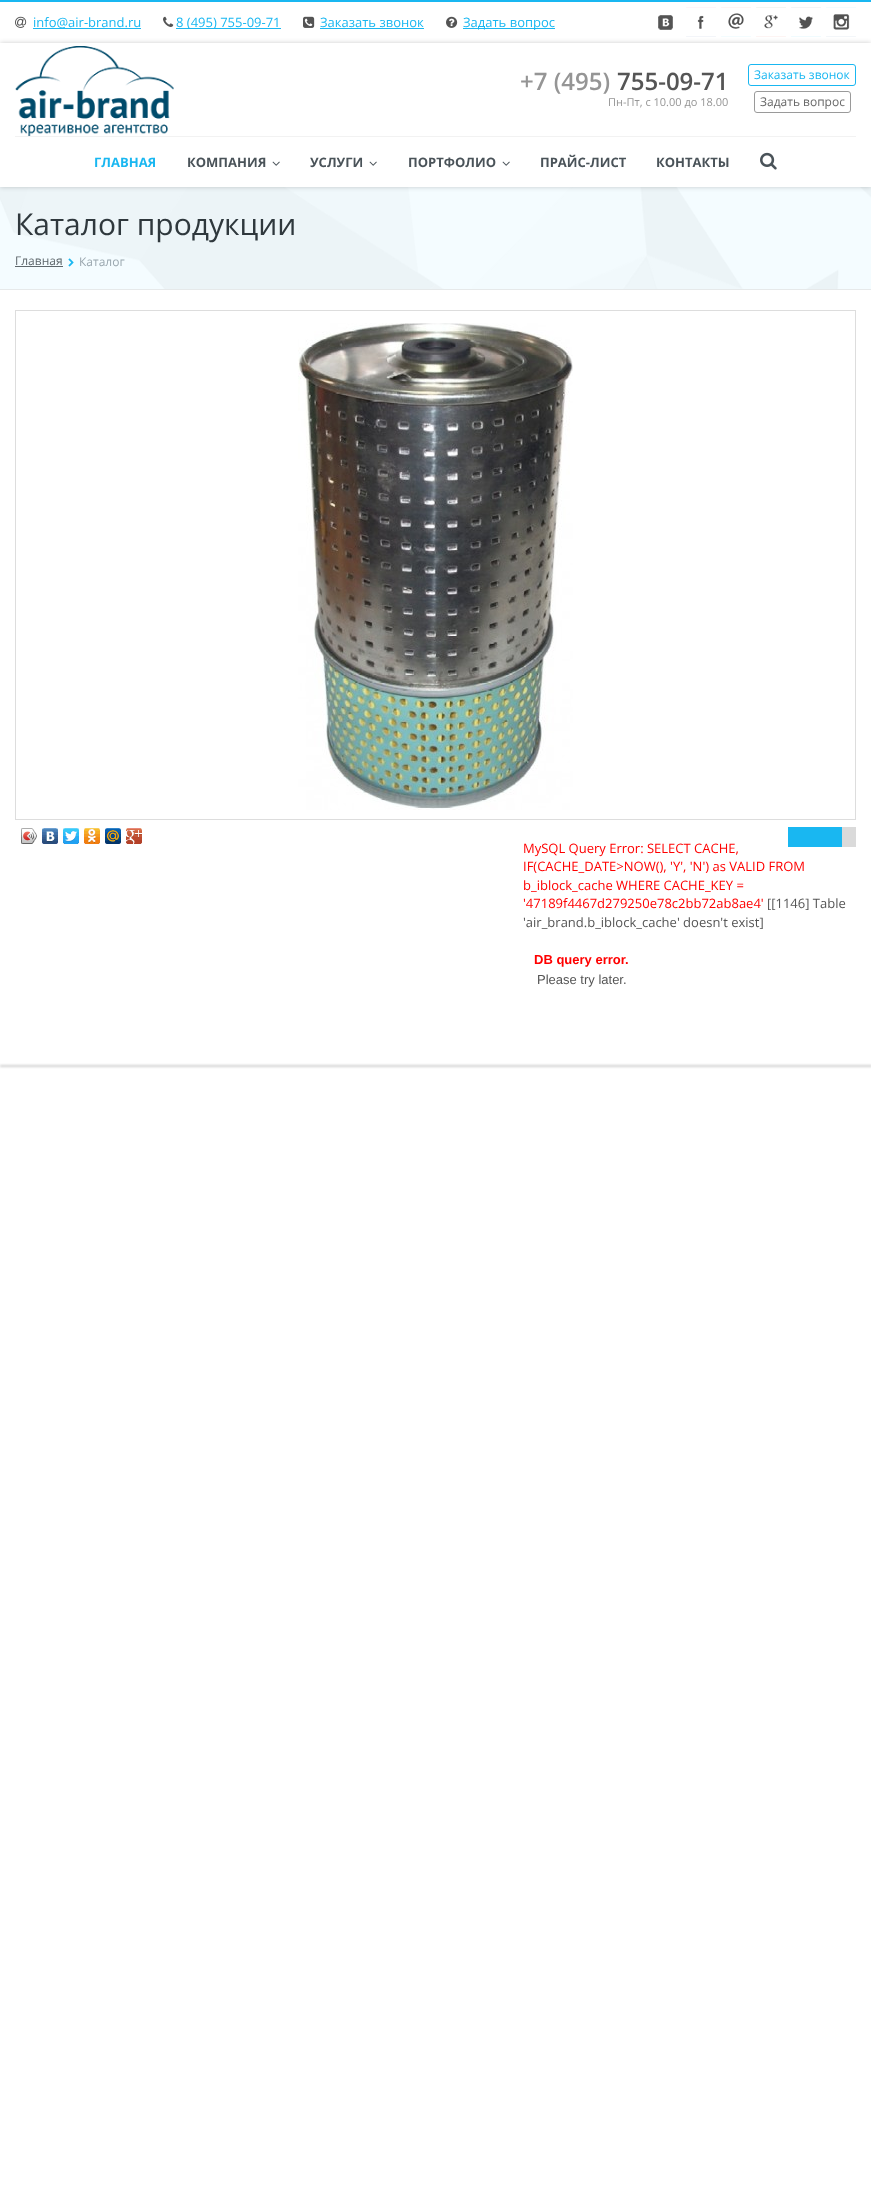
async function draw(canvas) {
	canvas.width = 871;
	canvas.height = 2200;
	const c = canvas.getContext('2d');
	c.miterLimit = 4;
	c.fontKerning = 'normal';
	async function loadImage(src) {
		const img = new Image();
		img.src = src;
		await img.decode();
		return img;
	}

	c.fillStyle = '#fff';
	c.fillRect(0, 0, 871, 2200);
	c.fillStyle = '#19b7f1';
	c.fillRect(0, 0, 871, 2);
	c.drawImage(await loadImage('img1.png'), 15, 16, 12, 12);
	c.fillRect(33, 28, 108, 1);
	c.font = '13px Open Sans';
	c.fillText('info@air-brand.ru', 33, 27);
	c.drawImage(await loadImage('img2.png'), 163, 16, 11, 11);
	c.fillRect(176, 28, 105, 1);
	c.fillText('8 (495) 755-09-71', 176, 27);
	c.drawImage(await loadImage('img3.png'), 303, 16, 12, 12);
	c.fillText('Заказать звонок', 320, 27);
	c.fillRect(320, 28, 104, 1);
	c.drawImage(await loadImage('img4.png'), 446, 16, 12, 12);
	c.fillRect(463, 28, 92, 1);
	c.fillText('Задать вопрос', 463, 27);
	c.drawImage(await loadImage('img5.png'), 658, 15, 15, 15);
	c.drawImage(await loadImage('img6.png'), 686, 7, 30, 30);
	c.drawImage(await loadImage('img7.png'), 721, 7, 30, 30);
	c.drawImage(await loadImage('img8.png'), 756, 7, 30, 30);
	c.drawImage(await loadImage('img9.png'), 791, 7, 30, 30);
	c.drawImage(await loadImage('img10.png'), 826, 7, 30, 30);
	c.fillStyle = '#f4fcff';
	c.fillRect(0, 187, 871, 102);
	c.drawImage(await loadImage('img14.png'), 0, 187, 871, 102);
	c.fillStyle = '#00000033';
	c.filter = 'blur(2.5px)';
	c.beginPath();
	c.rect(0, 43, 871, 144);
	c.fill();
	c.filter = 'none';
	c.fillStyle = '#fff';
	c.fillRect(0, 43, 871, 144);
	c.drawImage(await loadImage('img11.png'), 15, 46, 159, 90);
	c.font = '600 24px Open Sans';
	c.fillStyle = '#959595';
	c.fillText('+7 (495)', 520, 90);
	c.fillStyle = '#555';
	c.fillText('755-09-71', 617, 90);
	c.font = '11px Open Sans';
	c.fillStyle = '#959595';
	c.fillText('Пн-Пт, с 10.00 до 18.00', 608, 106);
	c.beginPath();
	c.roundRect(748.5, 64.5, 107, 21, 2.5);
	c.strokeStyle = '#19b7f1';
	c.stroke();
	c.font = '12px Open Sans';
	c.fillStyle = '#19b7f1';
	c.fillText('Заказать звонок', 754, 79);
	c.beginPath();
	c.roundRect(754.5, 91.5, 96, 21, 2.5);
	c.strokeStyle = '#9a9a9a';
	c.stroke();
	c.fillStyle = '#676767';
	c.fillText('Задать вопрос', 760, 106);
	c.fillStyle = '#f2f2f2';
	c.fillRect(15, 136, 841, 1);
	c.font = 'bold 13px Open Sans';
	c.fillStyle = '#19b7f1';
	c.fillText('ГЛАВНАЯ', 94, 167);
	c.fillStyle = '#4a5359';
	c.fillText('КОМПАНИЯ', 187, 167);
	c.drawImage(await loadImage('img12.png'), 272, 161, 8, 5);
	c.fillText('УСЛУГИ', 310, 167);
	c.drawImage(await loadImage('img12.png'), 369, 161, 8, 5);
	c.fillText('ПОРТФОЛИО', 408, 167);
	c.drawImage(await loadImage('img12.png'), 502, 161, 8, 5);
	c.fillText('ПРАЙС-ЛИСТ', 540, 167);
	c.fillText('КОНТАКТЫ', 656, 167);
	c.drawImage(await loadImage('img13.png'), 760, 152, 17, 18);
	c.fillStyle = '#e6e9ea';
	c.fillRect(0, 289, 871, 1);
	c.font = '30px Open Sans';
	c.fillStyle = '#2f383d';
	c.fillText('Каталог продукции', 15, 235);
	c.font = '12px Open Sans';
	c.fillStyle = '#5e676c';
	c.fillText('Главная', 15, 265);
	c.fillRect(15, 266, 48, 1);
	c.drawImage(await loadImage('img15.png'), 68, 258, 6, 9);
	c.fillStyle = '#9aa7af';
	c.fillText('Каталог', 79, 266);
	c.strokeStyle = '#ddd';
	c.strokeRect(15.5, 310.5, 840, 509);
	c.drawImage(await loadImage('img16.png'), 298, 323, 275, 487);
	c.drawImage(await loadImage('img17.png'), 21, 828, 16, 16);
	c.drawImage(await loadImage('img18.png'), 21, 828, 16, 16);
	c.drawImage(await loadImage('img19.png'), 42, 828, 16, 16);
	c.drawImage(await loadImage('img20.png'), 63, 828, 16, 16);
	c.drawImage(await loadImage('img21.png'), 84, 828, 16, 16);
	c.drawImage(await loadImage('img22.png'), 105, 828, 16, 16);
	c.drawImage(await loadImage('img23.png'), 126, 828, 16, 16);
	c.fillStyle = '#dadada';
	c.fillRect(842, 827, 14, 20);
	c.fillStyle = '#19b7f1';
	c.fillRect(788, 827, 54, 20);
	c.font = '13px Open Sans';
	c.fillStyle = '#f00';
	for (const [text, x, y] of [
		['MySQL Query Error: SELECT CACHE,', 523, 853],
		['IF(CACHE_DATE>NOW(), \'Y\', \'N\') as VALID FROM', 523, 871],
		['b_iblock_cache WHERE CACHE_KEY =', 523, 890],
		['\'47189f4467d279250e78c2bb72ab8ae4\'', 523, 908],
	]) {
		c.fillText(text, x, y);
	}
	c.fillStyle = '#555';
	c.fillText('[[1146] Table', 767, 908);
	c.fillText('\'air_brand.b_iblock_cache\' doesn\'t exist]', 523, 927);
	c.font = 'bold 13px Liberation Sans';
	c.fillStyle = '#f00';
	c.fillText('DB query error.', 534, 964);
	c.font = '13px Liberation Sans';
	c.fillStyle = '#555';
	c.fillText('Please try later.', 537, 984);
	c.fillStyle = '#0000002e';
	c.filter = 'blur(1px)';
	c.beginPath();
	c.rect(0, 1065, 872, 2);
	c.fill();
	c.filter = 'none';
}

draw(document.querySelector('canvas'));
